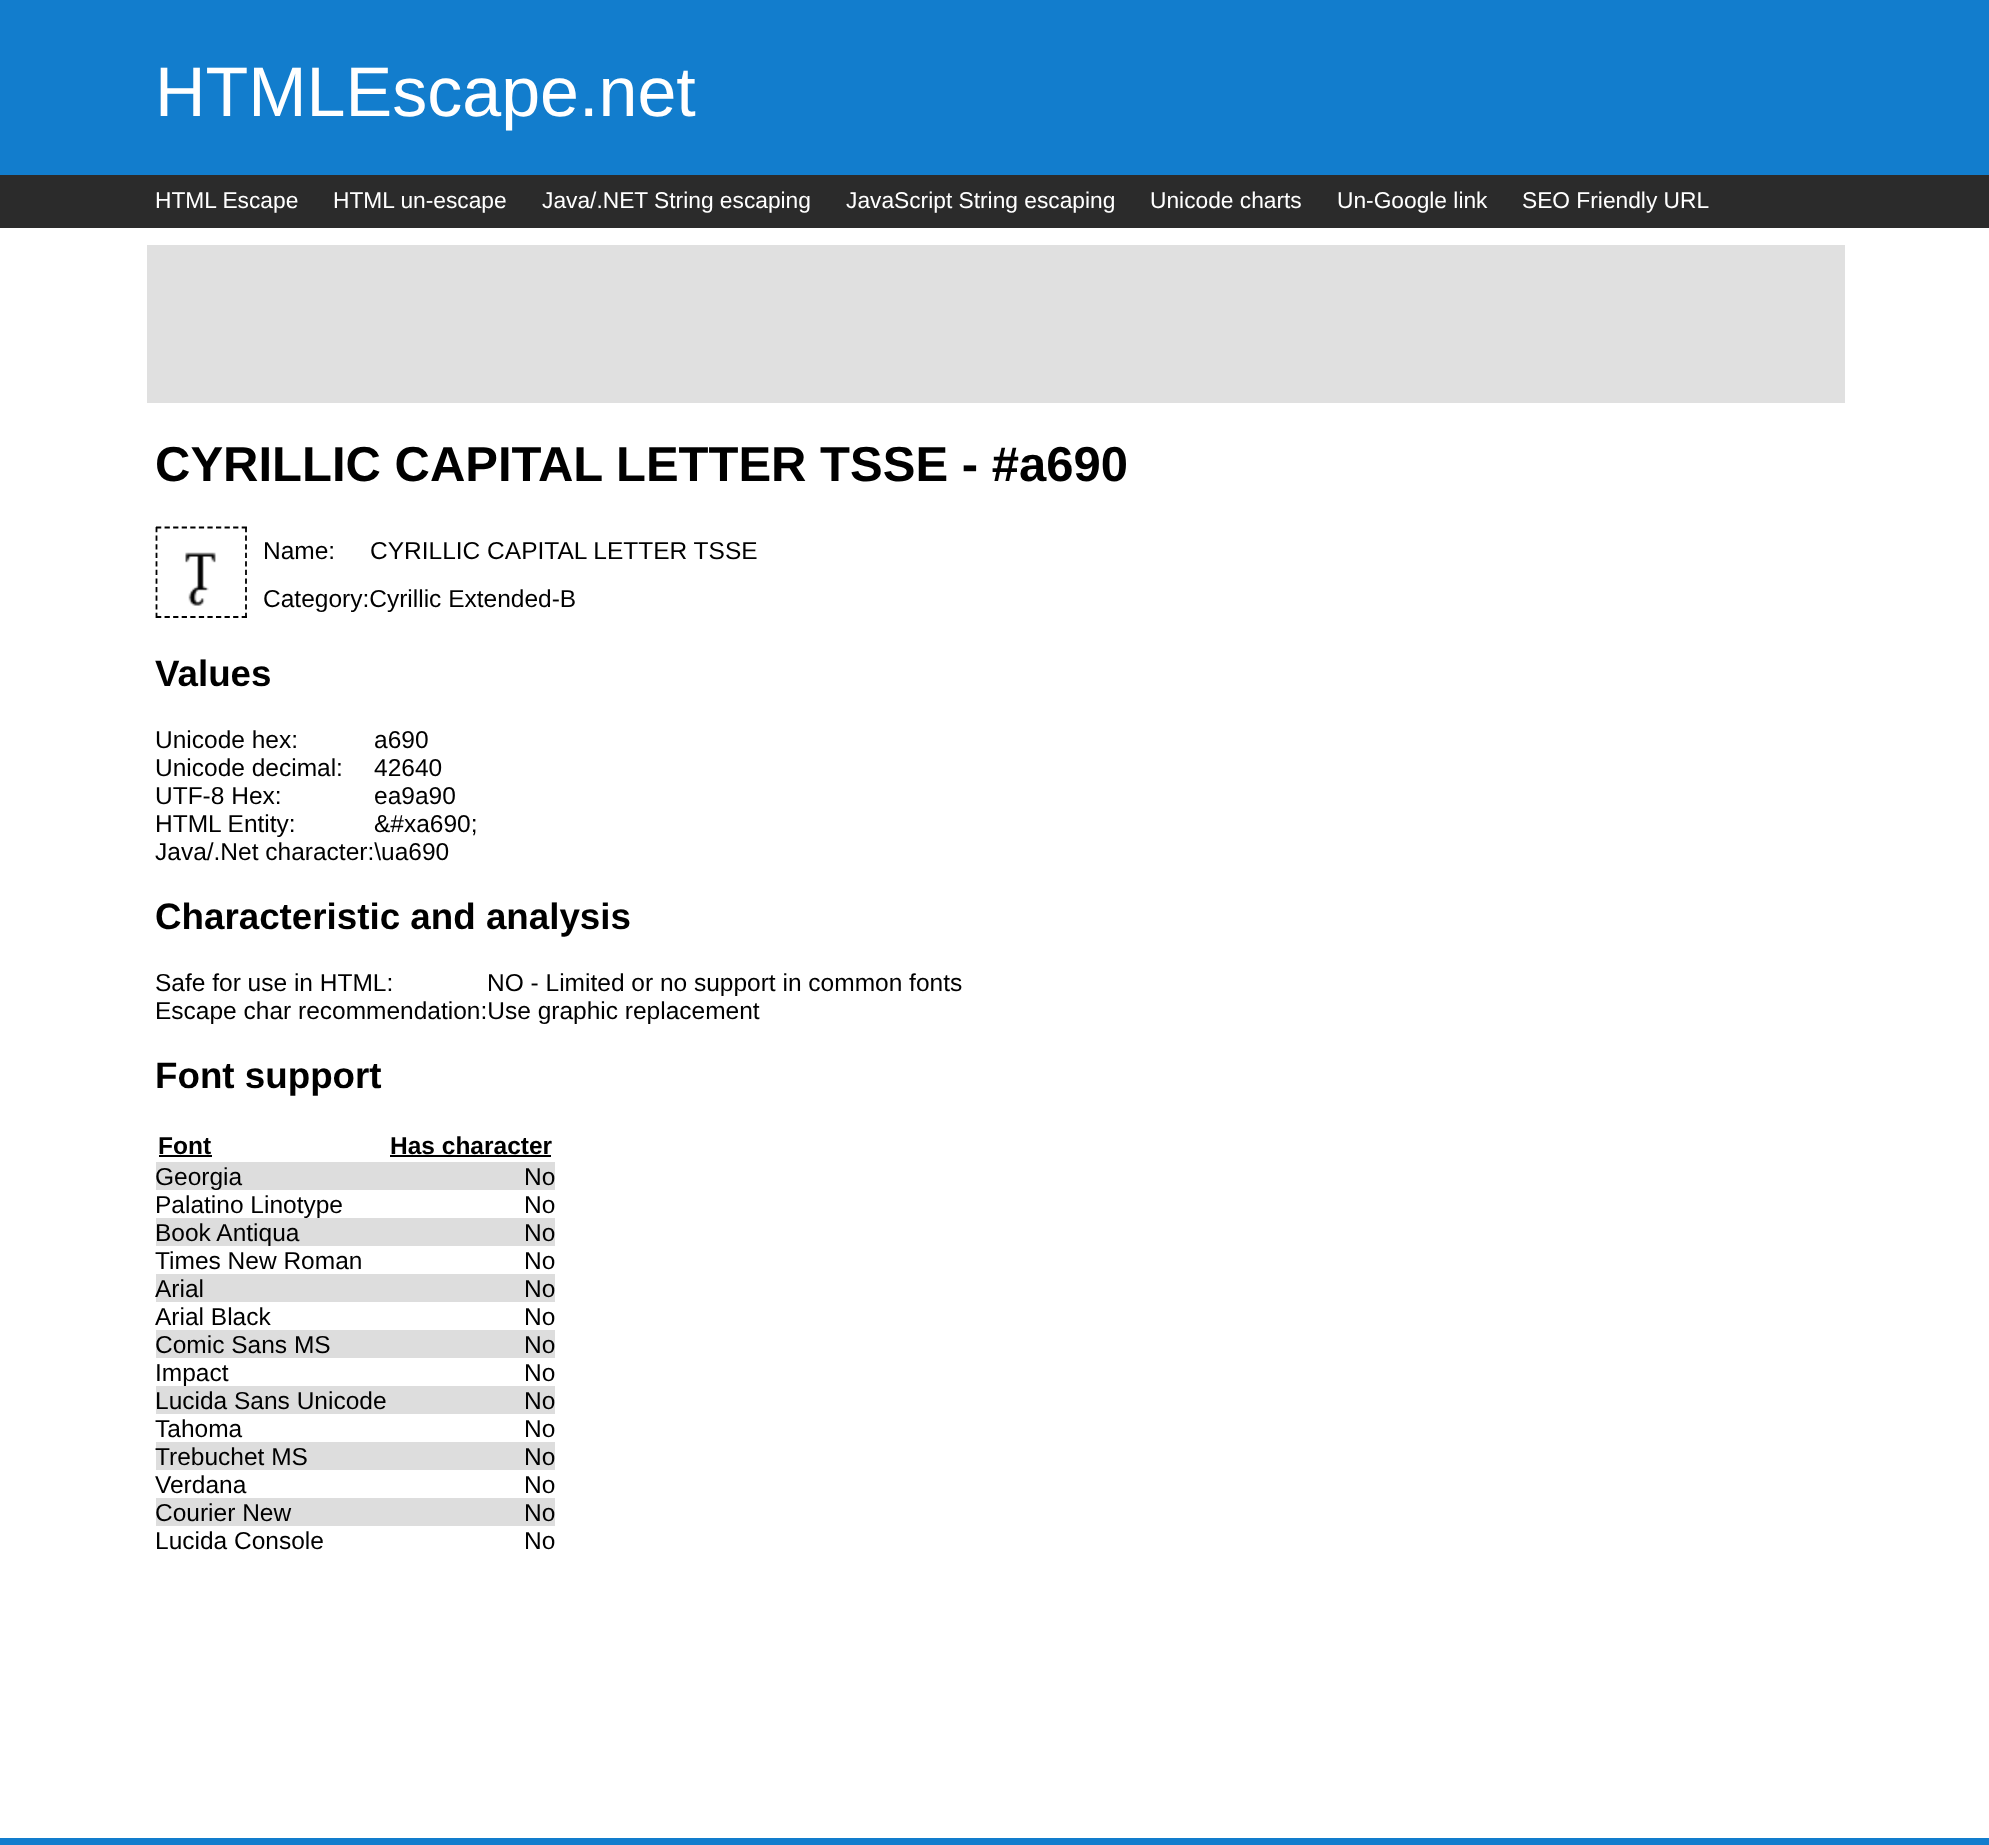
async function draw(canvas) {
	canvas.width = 1989;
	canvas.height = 1845;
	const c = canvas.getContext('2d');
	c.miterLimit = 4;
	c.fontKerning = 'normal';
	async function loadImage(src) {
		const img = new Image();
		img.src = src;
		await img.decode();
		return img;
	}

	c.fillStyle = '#fff';
	c.fillRect(0, 0, 1989, 1845);
	c.fillStyle = '#127dcd';
	c.fillRect(0, 0, 1989, 175);
	c.font = '70px Liberation Sans';
	c.fillStyle = '#fff';
	c.fillText('HTMLEscape.net', 155, 116);
	c.fillStyle = '#2b2b2b';
	c.fillRect(0, 175, 1989, 53);
	c.font = '22.75px Liberation Sans';
	c.fillStyle = '#fff';
	for (const [text, x, y] of [
		['HTML Escape', 155, 208],
		['HTML un-escape', 333, 208],
		['Java/.NET String escaping', 542, 208],
		['JavaScript String escaping', 846, 208],
		['Unicode charts', 1150, 208],
		['Un-Google link', 1337, 208],
		['SEO Friendly URL', 1522, 208],
	]) {
		c.fillText(text, x, y);
	}
	c.fillStyle = '#e0e0e0';
	c.fillRect(147, 245, 1698, 158);
	c.font = 'bold 49px Liberation Sans';
	c.fillStyle = '#000';
	c.fillText('CYRILLIC CAPITAL LETTER TSSE - #a690', 155, 481);
	c.beginPath();
	c.moveTo(156, 527.5);
	c.lineTo(247, 527.5);
	c.strokeStyle = '#000';
	c.lineWidth = 1.8;
	c.setLineDash([5.25, 3.32]);
	c.stroke();
	c.beginPath();
	c.moveTo(246, 527);
	c.lineTo(246, 618);
	c.stroke();
	c.beginPath();
	c.moveTo(156, 617);
	c.lineTo(247, 617);
	c.stroke();
	c.beginPath();
	c.moveTo(156.5, 527);
	c.lineTo(156.5, 618);
	c.stroke();
	c.drawImage(await loadImage('img1.png'), 185, 552, 31, 54);
	c.font = '24.5px Liberation Sans';
	for (const [text, x, y] of [
		['Name:', 263, 559],
		['CYRILLIC CAPITAL LETTER TSSE', 370, 559],
		['Category:Cyrillic Extended-B', 263, 607],
	]) {
		c.fillText(text, x, y);
	}
	c.font = 'bold 36.75px Liberation Sans';
	c.fillText('Values', 155, 686);
	c.font = '24.5px Liberation Sans';
	for (const [text, x, y] of [
		['Unicode hex:', 155, 748],
		['a690', 374, 748],
		['Unicode decimal:', 155, 776],
		['42640', 374, 776],
		['UTF-8 Hex:', 155, 804],
		['ea9a90', 374, 804],
		['HTML Entity:', 155, 832],
		['&#xa690;', 374, 832],
		['Java/.Net character:\\ua690', 155, 860],
	]) {
		c.fillText(text, x, y);
	}
	c.font = 'bold 36.75px Liberation Sans';
	c.fillText('Characteristic and analysis', 155, 929);
	c.font = '24.5px Liberation Sans';
	for (const [text, x, y] of [
		['Safe for use in HTML:', 155, 991],
		['NO - Limited or no support in common fonts', 487, 991],
		['Escape char recommendation:Use graphic replacement', 155, 1019],
	]) {
		c.fillText(text, x, y);
	}
	c.font = 'bold 36.75px Liberation Sans';
	c.fillText('Font support', 155, 1088);
	c.font = 'bold 24.5px Liberation Sans';
	c.fillText('Font', 158, 1154);
	c.fillRect(159, 1155, 53, 2);
	c.fillText('Has character', 390, 1154);
	c.fillRect(390, 1155, 161, 2);
	c.fillStyle = '#ddd';
	c.fillRect(156, 1162, 399, 28);
	c.font = '24.5px Liberation Sans';
	c.fillStyle = '#000';
	c.fillText('Georgia', 155, 1185);
	c.fillText('No', 524, 1185);
	c.fillStyle = '#ddd';
	c.fillRect(156, 1218, 399, 28);
	c.fillStyle = '#000';
	for (const [text, x, y] of [
		['Palatino Linotype', 155, 1213],
		['No', 524, 1213],
		['Book Antiqua', 155, 1241],
		['No', 524, 1241],
		['Times New Roman', 155, 1269],
		['No', 524, 1269],
	]) {
		c.fillText(text, x, y);
	}
	c.fillStyle = '#ddd';
	c.fillRect(156, 1274, 399, 28);
	c.fillStyle = '#000';
	for (const [text, x, y] of [
		['Arial', 155, 1297],
		['No', 524, 1297],
		['Arial Black', 155, 1325],
		['No', 524, 1325],
	]) {
		c.fillText(text, x, y);
	}
	c.fillStyle = '#ddd';
	c.fillRect(156, 1330, 399, 28);
	c.fillStyle = '#000';
	c.fillText('Comic Sans MS', 155, 1353);
	c.fillText('No', 524, 1353);
	c.fillStyle = '#ddd';
	c.fillRect(156, 1386, 399, 28);
	c.fillStyle = '#000';
	for (const [text, x, y] of [
		['Impact', 155, 1381],
		['No', 524, 1381],
		['Lucida Sans Unicode', 155, 1409],
		['No', 524, 1409],
		['Tahoma', 155, 1437],
		['No', 524, 1437],
	]) {
		c.fillText(text, x, y);
	}
	c.fillStyle = '#ddd';
	c.fillRect(156, 1442, 399, 28);
	c.fillStyle = '#000';
	for (const [text, x, y] of [
		['Trebuchet MS', 155, 1465],
		['No', 524, 1465],
		['Verdana', 155, 1493],
		['No', 524, 1493],
	]) {
		c.fillText(text, x, y);
	}
	c.fillStyle = '#ddd';
	c.fillRect(156, 1498, 399, 28);
	c.fillStyle = '#000';
	for (const [text, x, y] of [
		['Courier New', 155, 1521],
		['No', 524, 1521],
		['Lucida Console', 155, 1549],
		['No', 524, 1549],
	]) {
		c.fillText(text, x, y);
	}
	c.fillStyle = '#127dcd';
	c.fillRect(0, 1838, 1989, 7);
}

draw(document.querySelector('canvas'));
